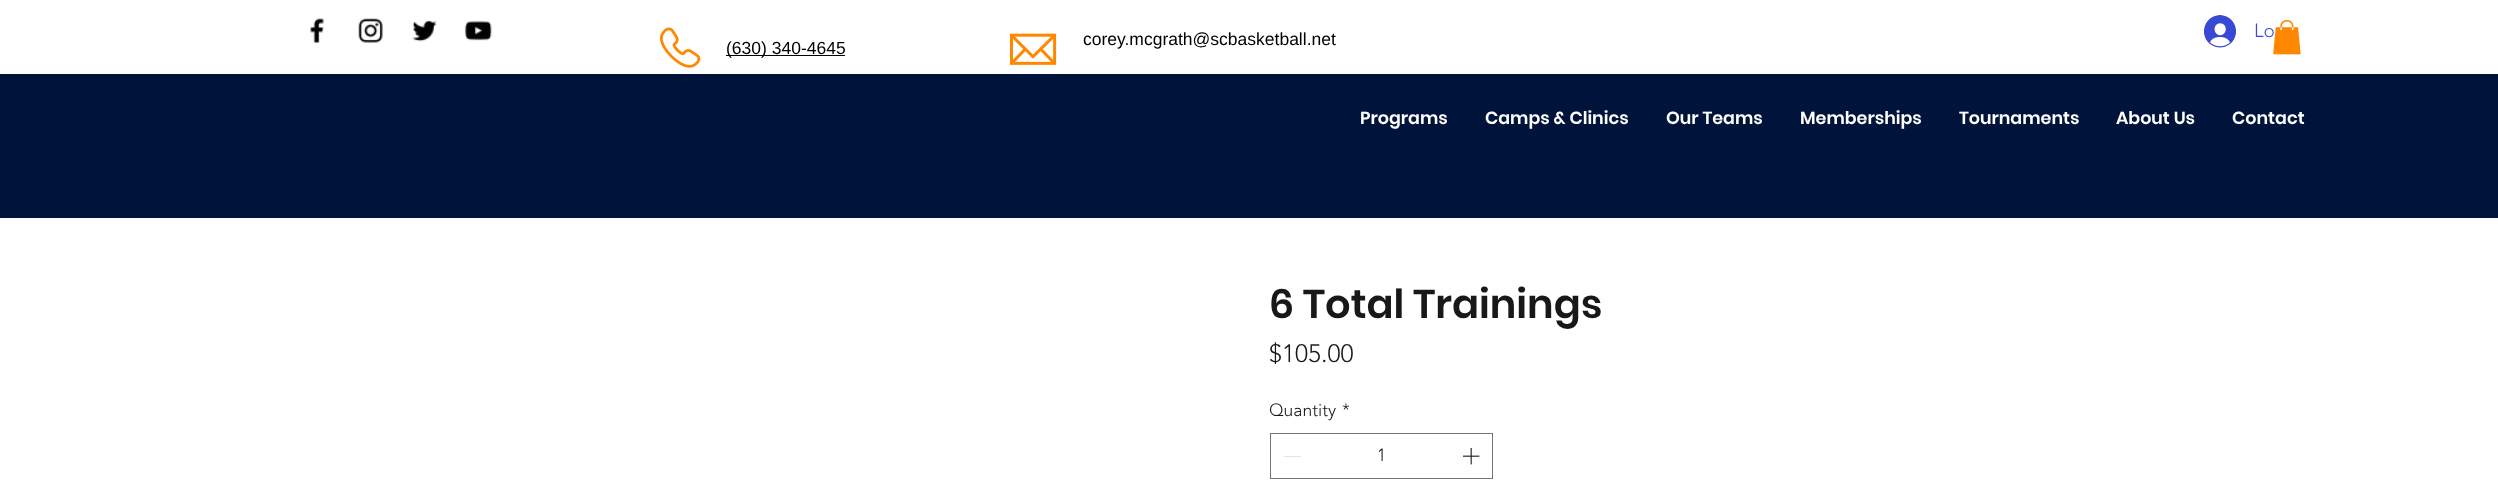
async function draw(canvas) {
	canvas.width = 2498;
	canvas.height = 489;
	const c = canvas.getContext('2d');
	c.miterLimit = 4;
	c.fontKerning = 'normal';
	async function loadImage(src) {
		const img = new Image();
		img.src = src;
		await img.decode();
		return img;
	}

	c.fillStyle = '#fff';
	c.fillRect(0, 0, 2498, 489);
	c.drawImage(await loadImage('img1.png'), 310, 18, 14, 25);
	c.drawImage(await loadImage('img2.png'), 358, 18, 25, 25);
	c.drawImage(await loadImage('img3.png'), 412, 20, 25, 22);
	c.drawImage(await loadImage('img4.png'), 464, 21, 28, 20);
	c.drawImage(await loadImage('img5.png'), 2204, 15, 32, 33);
	c.font = '300 19px "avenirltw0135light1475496"';
	c.fillStyle = '#384ad3';
	c.fillText('Lo', 2254, 37);
	c.drawImage(await loadImage('img6.png'), 2273, 20, 28, 35);
	c.drawImage(await loadImage('img7.png'), 660, 27, 41, 41);
	c.fillStyle = '#000';
	c.fillRect(726, 55, 119, 1);
	c.font = '17.5px Liberation Sans';
	c.fillText('(630) 340-4645', 726, 54);
	c.drawImage(await loadImage('img8.png'), 1010, 33, 47, 32);
	c.fillText('corey.mcgrath@scbasketball.net', 1083, 45);
	c.fillStyle = '#00133b';
	c.fillRect(0, 74, 2498, 144);
	c.font = '600 17.5px Poppins';
	c.fillStyle = '#fff';
	for (const [text, x, y] of [
		['Programs', 1360, 124],
		['Camps & Clinics', 1485, 124],
		['Our Teams', 1666, 124],
		['Memberships', 1800, 124],
		['Tournaments', 1959, 124],
		['About Us', 2116, 124],
		['Contact', 2232, 124],
	]) {
		c.fillText(text, x, y);
	}
	c.font = '600 40px Poppins';
	c.fillStyle = '#181818';
	c.fillText('6 Total Trainings', 1269, 318);
	c.font = '300 25px "avenirltw0135light1475496"';
	c.fillText('$105.00', 1269, 362);
	c.font = '300 17.5px "avenirltw0135light1475496"';
	c.fillText('Quantity', 1269, 416);
	c.fillText('*', 1342, 416);
	c.strokeStyle = '#747474';
	c.strokeRect(1270.5, 433.5, 222, 45);
	c.fillStyle = '#e3e3e3';
	c.fillRect(1284, 456, 17, 1);
	c.fillStyle = '#181818';
	c.fillText('1', 1377, 461);
	c.drawImage(await loadImage('img9.png'), 1463, 448, 17, 17);
}

draw(document.querySelector('canvas'));
